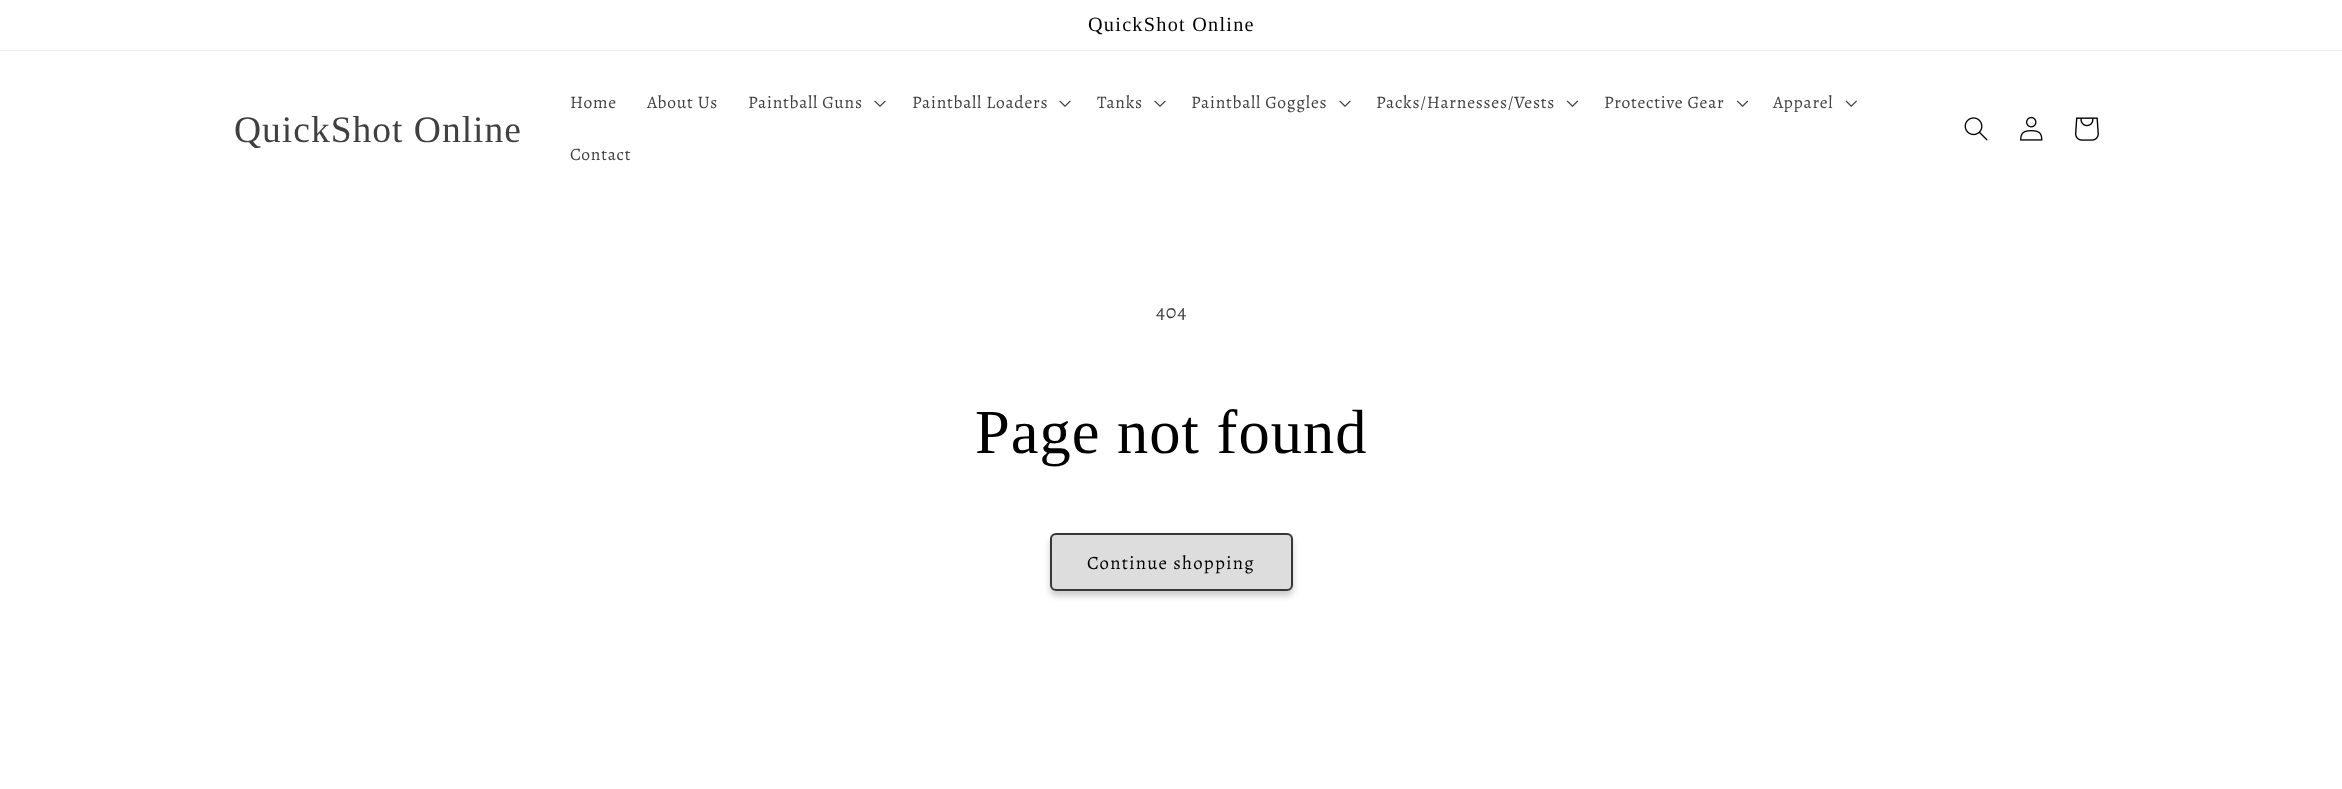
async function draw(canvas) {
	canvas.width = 2342;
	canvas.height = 789;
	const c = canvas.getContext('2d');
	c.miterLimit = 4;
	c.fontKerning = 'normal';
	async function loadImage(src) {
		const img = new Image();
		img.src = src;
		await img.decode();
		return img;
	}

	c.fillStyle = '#fff';
	c.fillRect(0, 0, 2342, 789);
	c.fillStyle = '#ebebeb';
	c.fillRect(0, 50, 2342, 1);
	c.letterSpacing = '1.25px';
	c.font = '20.25px Liberation Serif';
	c.fillStyle = '#000';
	c.fillText('QuickShot Online', 1088, 31);
	c.letterSpacing = '1px';
	c.font = '37.5px Liberation Serif';
	c.fillStyle = '#404040';
	c.fillText('QuickShot Online', 234, 142);
	c.letterSpacing = '0.75px';
	c.font = '17.5px Alegreya';
	for (const [text, x, y] of [
		['Home', 570, 108],
		['About Us', 647, 108],
		['Paintball Guns', 748, 108],
	]) {
		c.fillText(text, x, y);
	}
	c.drawImage(await loadImage('img1.png'), 874, 100, 12, 7);
	c.fillText('Paintball Loaders', 912, 108);
	c.drawImage(await loadImage('img1.png'), 1059, 100, 12, 7);
	c.fillText('Tanks', 1097, 108);
	c.drawImage(await loadImage('img1.png'), 1154, 100, 12, 7);
	c.fillText('Paintball Goggles', 1191, 108);
	c.drawImage(await loadImage('img1.png'), 1339, 100, 12, 7);
	c.fillText('Packs/Harnesses/Vests', 1376, 108);
	c.drawImage(await loadImage('img2.png'), 1566, 100, 13, 7);
	c.fillText('Protective Gear', 1604, 108);
	c.drawImage(await loadImage('img2.png'), 1736, 100, 13, 7);
	c.fillText('Apparel', 1773, 108);
	c.drawImage(await loadImage('img3.png'), 1845, 100, 12, 7);
	c.fillText('Contact', 570, 160);
	c.drawImage(await loadImage('img4.png'), 1964, 117, 24, 24);
	c.drawImage(await loadImage('img5.png'), 2020, 116, 23, 25);
	c.drawImage(await loadImage('img6.png'), 2075, 117, 24, 24);
	c.font = '20px Alegreya';
	c.fillText('404', 1156, 318);
	c.letterSpacing = '1px';
	c.font = '62.5px Liberation Serif';
	c.fillStyle = '#000';
	c.fillText('Page not found', 975, 453);
	c.fillStyle = '#00000033';
	c.filter = 'blur(3px)';
	c.beginPath();
	c.roundRect(1050, 538, 243, 58, 6);
	c.fill();
	c.filter = 'none';
	c.fillStyle = '#ddd';
	c.beginPath();
	c.roundRect(1050, 533, 243, 58, 6);
	c.fill();
	c.beginPath();
	c.roundRect(1050.5, 533.5, 242, 57, 5.5);
	c.strokeStyle = '#ddd';
	c.stroke();
	c.beginPath();
	c.roundRect(1051, 534, 241, 56, 5);
	c.strokeStyle = '#373737';
	c.lineWidth = 2;
	c.stroke();
	c.letterSpacing = '1.25px';
	c.font = '18.75px Alegreya';
	c.fillStyle = '#000';
	c.fillText('Continue shopping', 1087, 569);
}

draw(document.querySelector('canvas'));
